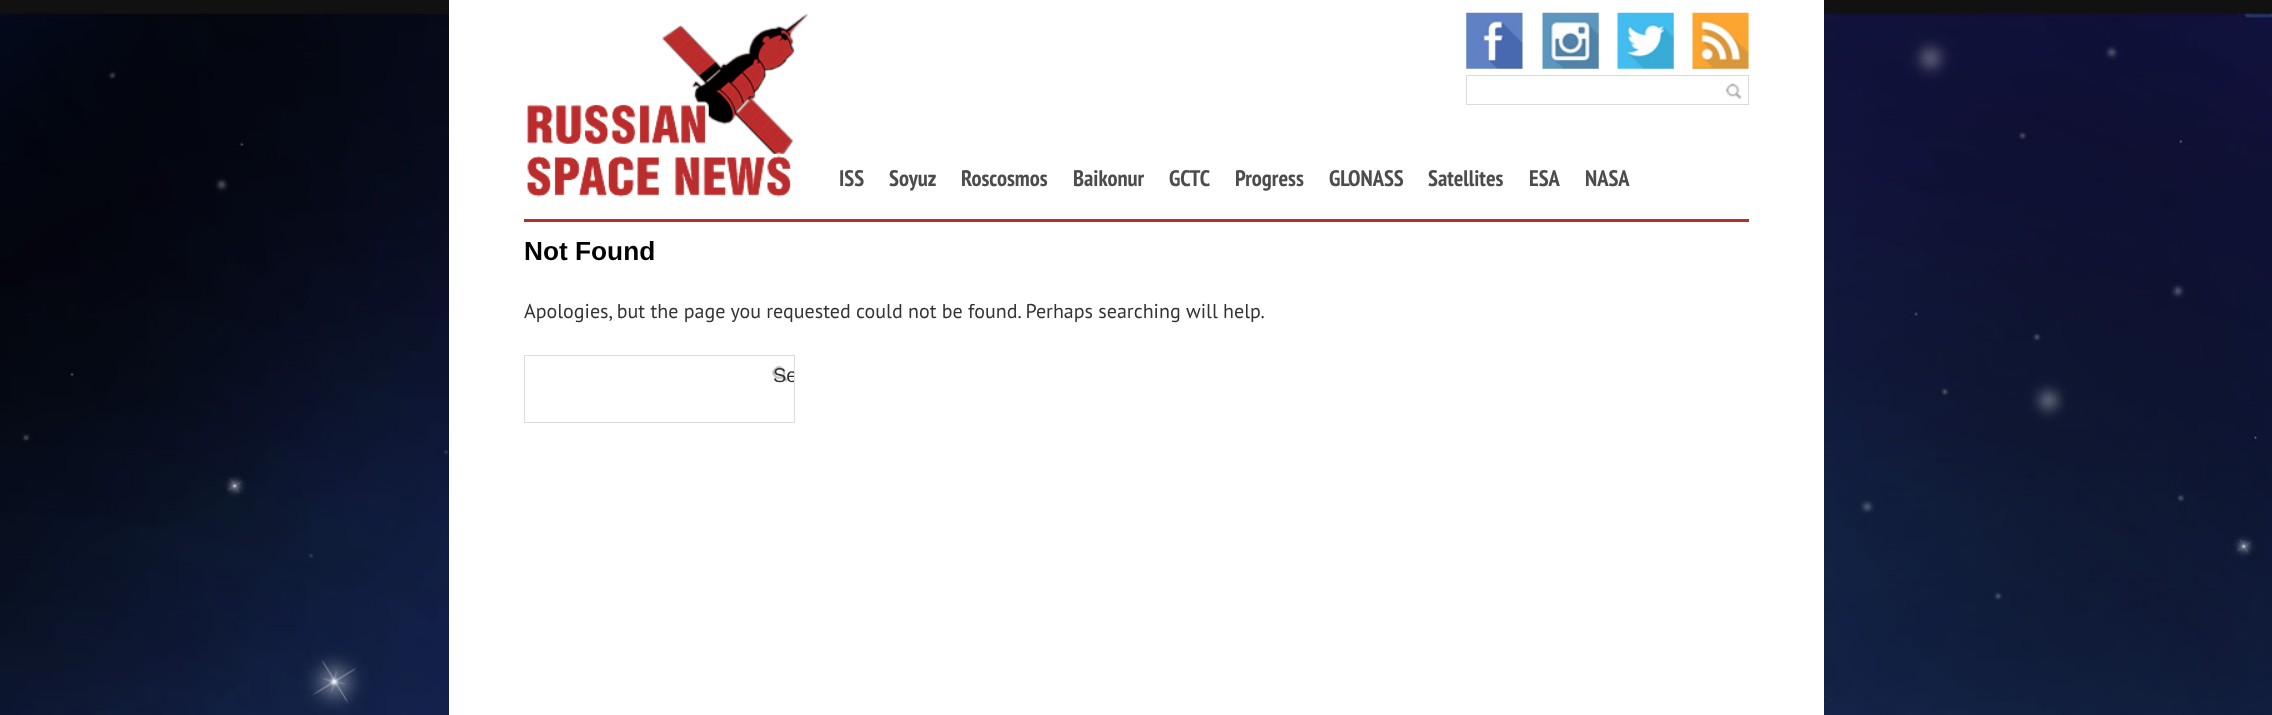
async function draw(canvas) {
	canvas.width = 2272;
	canvas.height = 715;
	const c = canvas.getContext('2d');
	c.miterLimit = 4;
	c.fontKerning = 'normal';
	async function loadImage(src) {
		const img = new Image();
		img.src = src;
		await img.decode();
		return img;
	}

	c.fillStyle = '#111';
	c.fillRect(0, 0, 2272, 715);
	c.drawImage(await loadImage('img1.png'), 0, 10, 2272, 705);
	c.fillStyle = '#fff';
	c.fillRect(449, 0, 1375, 715);
	c.fillStyle = '#bb2c2c';
	c.fillRect(524, 219, 1225, 3);
	c.drawImage(await loadImage('img2.png'), 527, 13, 281, 184);
	c.drawImage(await loadImage('img3.png'), 1466, 12, 57, 57);
	c.drawImage(await loadImage('img4.png'), 1542, 12, 57, 57);
	c.drawImage(await loadImage('img5.png'), 1617, 12, 57, 57);
	c.drawImage(await loadImage('img6.png'), 1692, 12, 57, 57);
	c.strokeStyle = '#dbdbdb';
	c.strokeRect(1466.5, 75.5, 282, 29);
	c.drawImage(await loadImage('img7.png'), 1726, 83, 16, 16);
	c.font = 'bold 22.5px PT Sans Narrow';
	c.fillStyle = '#4c4c4c';
	for (const [text, x, y] of [
		['ISS', 839, 186],
		['Soyuz', 889, 186],
		['Roscosmos', 961, 186],
		['Baikonur', 1073, 186],
		['GCTC', 1169, 186],
		['Progress', 1235, 186],
		['GLONASS', 1329, 186],
		['Satellites', 1428, 186],
		['ESA', 1529, 186],
		['NASA', 1585, 186],
	]) {
		c.fillText(text, x, y);
	}
	c.font = 'bold 26.25px Liberation Sans';
	c.fillStyle = '#000';
	c.fillText('Not Found', 524, 260);
	c.font = '20px PT Sans';
	c.fillStyle = '#333';
	c.fillText('Apologies, but the page you requested could not be found. Perhaps searching will help.', 524, 318);
	c.strokeRect(524.5, 355.5, 270, 67);
	c.drawImage(await loadImage('img8.png'), 772, 366, 16, 16);
	c.save();
	c.beginPath();
	c.rect(765, 359, 29, 29);
	c.clip();
	c.font = '20px Liberation Sans';
	c.fillText('Se', 773, 382);
	c.restore();
}

draw(document.querySelector('canvas'));
